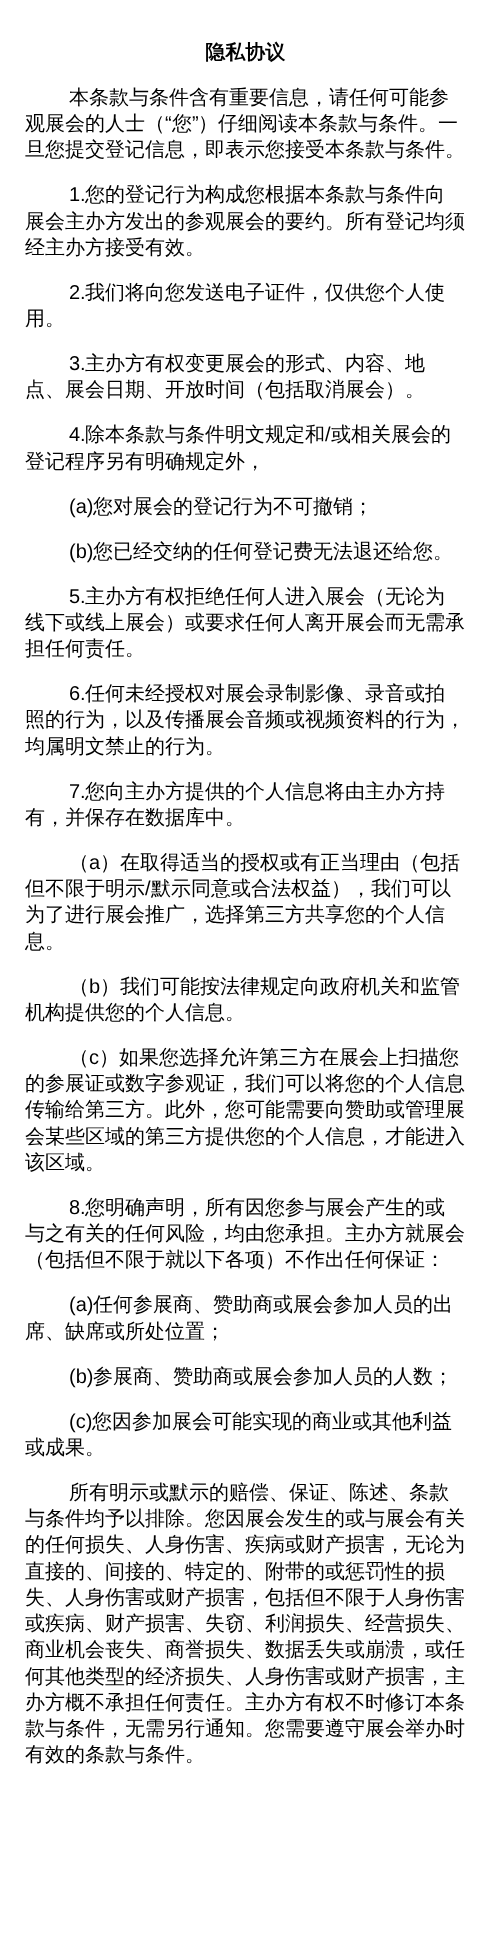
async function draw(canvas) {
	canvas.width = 490;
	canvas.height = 1948;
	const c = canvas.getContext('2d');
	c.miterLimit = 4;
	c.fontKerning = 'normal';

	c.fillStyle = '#fff';
	c.fillRect(0, 0, 490, 1948);
	c.font = 'bold 20px WenQuanYi Zen Hei';
	c.fillStyle = '#000';
	c.fillText('隐私协议', 205, 59);
	c.font = '500 20px WenQuanYi Zen Hei';
	c.fillText('本条款与条件含有重要信息，请任何可能参', 69, 104);
	c.fillText('观展会的人士（', 25, 130);
	c.font = '20px Liberation Sans';
	c.fillText('“', 165, 130);
	c.font = '500 20px WenQuanYi Zen Hei';
	c.fillText('您', 172, 130);
	c.font = '20px Liberation Sans';
	c.fillText('”', 192, 130);
	c.font = '500 20px WenQuanYi Zen Hei';
	c.fillText('）仔细阅读本条款与条件。一', 198, 130);
	c.fillText('旦您提交登记信息，即表示您接受本条款与条件。', 25, 156);
	c.font = '20px Liberation Sans';
	c.fillText('1.', 69, 201);
	c.font = '500 20px WenQuanYi Zen Hei';
	for (const [text, x, y] of [
		['您的登记行为构成您根据本条款与条件向', 85, 201],
		['展会主办方发出的参观展会的要约。所有登记均须', 25, 228],
		['经主办方接受有效。', 25, 254],
	]) {
		c.fillText(text, x, y);
	}
	c.font = '20px Liberation Sans';
	c.fillText('2.', 69, 299);
	c.font = '500 20px WenQuanYi Zen Hei';
	c.fillText('我们将向您发送电子证件，仅供您个人使', 85, 299);
	c.fillText('用。', 25, 325);
	c.font = '20px Liberation Sans';
	c.fillText('3.', 69, 370);
	c.font = '500 20px WenQuanYi Zen Hei';
	c.fillText('主办方有权变更展会的形式、内容、地', 85, 370);
	c.fillText('点、展会日期、开放时间（包括取消展会）。', 25, 396);
	c.font = '20px Liberation Sans';
	c.fillText('4.', 69, 441);
	c.font = '500 20px WenQuanYi Zen Hei';
	c.fillText('除本条款与条件明文规定和', 85, 441);
	c.font = '20px Liberation Sans';
	c.fillText('/', 325, 441);
	c.font = '500 20px WenQuanYi Zen Hei';
	c.fillText('或相关展会的', 331, 441);
	c.fillText('登记程序另有明确规定外，', 25, 468);
	c.font = '20px Liberation Sans';
	c.fillText('(a)', 69, 513);
	c.font = '500 20px WenQuanYi Zen Hei';
	c.fillText('您对展会的登记行为不可撤销；', 93, 513);
	c.font = '20px Liberation Sans';
	c.fillText('(b)', 69, 558);
	c.font = '500 20px WenQuanYi Zen Hei';
	c.fillText('您已经交纳的任何登记费无法退还给您。', 93, 558);
	c.font = '20px Liberation Sans';
	c.fillText('5.', 69, 603);
	c.font = '500 20px WenQuanYi Zen Hei';
	for (const [text, x, y] of [
		['主办方有权拒绝任何人进入展会（无论为', 85, 603],
		['线下或线上展会）或要求任何人离开展会而无需承', 25, 629],
		['担任何责任。', 25, 655],
	]) {
		c.fillText(text, x, y);
	}
	c.font = '20px Liberation Sans';
	c.fillText('6.', 69, 700);
	c.font = '500 20px WenQuanYi Zen Hei';
	for (const [text, x, y] of [
		['任何未经授权对展会录制影像、录音或拍', 85, 700],
		['照的行为，以及传播展会音频或视频资料的行为，', 25, 726],
		['均属明文禁止的行为。', 25, 753],
	]) {
		c.fillText(text, x, y);
	}
	c.font = '20px Liberation Sans';
	c.fillText('7.', 69, 798);
	c.font = '500 20px WenQuanYi Zen Hei';
	for (const [text, x, y] of [
		['您向主办方提供的个人信息将由主办方持', 85, 798],
		['有，并保存在数据库中。', 25, 824],
		['（', 69, 869],
	]) {
		c.fillText(text, x, y);
	}
	c.font = '20px Liberation Sans';
	c.fillText('a', 89, 869);
	c.font = '500 20px WenQuanYi Zen Hei';
	c.fillText('）在取得适当的授权或有正当理由（包括', 100, 869);
	c.fillText('但不限于明示', 25, 895);
	c.font = '20px Liberation Sans';
	c.fillText('/', 145, 895);
	c.font = '500 20px WenQuanYi Zen Hei';
	for (const [text, x, y] of [
		['默示同意或合法权益），我们可以', 151, 895],
		['为了进行展会推广，选择第三方共享您的个人信', 25, 921],
		['息。', 25, 948],
		['（', 69, 993],
	]) {
		c.fillText(text, x, y);
	}
	c.font = '20px Liberation Sans';
	c.fillText('b', 89, 993);
	c.font = '500 20px WenQuanYi Zen Hei';
	for (const [text, x, y] of [
		['）我们可能按法律规定向政府机关和监管', 100, 993],
		['机构提供您的个人信息。', 25, 1019],
		['（', 69, 1064],
	]) {
		c.fillText(text, x, y);
	}
	c.font = '20px Liberation Sans';
	c.fillText('c', 89, 1064);
	c.font = '500 20px WenQuanYi Zen Hei';
	for (const [text, x, y] of [
		['）如果您选择允许第三方在展会上扫描您', 99, 1064],
		['的参展证或数字参观证，我们可以将您的个人信息', 25, 1090],
		['传输给第三方。此外，您可能需要向赞助或管理展', 25, 1116],
		['会某些区域的第三方提供您的个人信息，才能进入', 25, 1143],
		['该区域。', 25, 1169],
	]) {
		c.fillText(text, x, y);
	}
	c.font = '20px Liberation Sans';
	c.fillText('8.', 69, 1214);
	c.font = '500 20px WenQuanYi Zen Hei';
	for (const [text, x, y] of [
		['您明确声明，所有因您参与展会产生的或', 85, 1214],
		['与之有关的任何风险，均由您承担。主办方就展会', 25, 1240],
		['（包括但不限于就以下各项）不作出任何保证：', 25, 1266],
	]) {
		c.fillText(text, x, y);
	}
	c.font = '20px Liberation Sans';
	c.fillText('(a)', 69, 1311);
	c.font = '500 20px WenQuanYi Zen Hei';
	c.fillText('任何参展商、赞助商或展会参加人员的出', 93, 1311);
	c.fillText('席、缺席或所处位置；', 25, 1338);
	c.font = '20px Liberation Sans';
	c.fillText('(b)', 69, 1383);
	c.font = '500 20px WenQuanYi Zen Hei';
	c.fillText('参展商、赞助商或展会参加人员的人数；', 93, 1383);
	c.font = '20px Liberation Sans';
	c.fillText('(c)', 69, 1428);
	c.font = '500 20px WenQuanYi Zen Hei';
	for (const [text, x, y] of [
		['您因参加展会可能实现的商业或其他利益', 92, 1428],
		['或成果。', 25, 1454],
		['所有明示或默示的赔偿、保证、陈述、条款', 69, 1499],
		['与条件均予以排除。您因展会发生的或与展会有关', 25, 1525],
		['的任何损失、人身伤害、疾病或财产损害，无论为', 25, 1551],
		['直接的、间接的、特定的、附带的或惩罚性的损', 25, 1578],
		['失、人身伤害或财产损害，包括但不限于人身伤害', 25, 1604],
		['或疾病、财产损害、失窃、利润损失、经营损失、', 25, 1630],
		['商业机会丧失、商誉损失、数据丢失或崩溃，或任', 25, 1656],
		['何其他类型的经济损失、人身伤害或财产损害，主', 25, 1683],
		['办方概不承担任何责任。主办方有权不时修订本条', 25, 1709],
		['款与条件，无需另行通知。您需要遵守展会举办时', 25, 1735],
		['有效的条款与条件。', 25, 1761],
	]) {
		c.fillText(text, x, y);
	}
}

draw(document.querySelector('canvas'));
